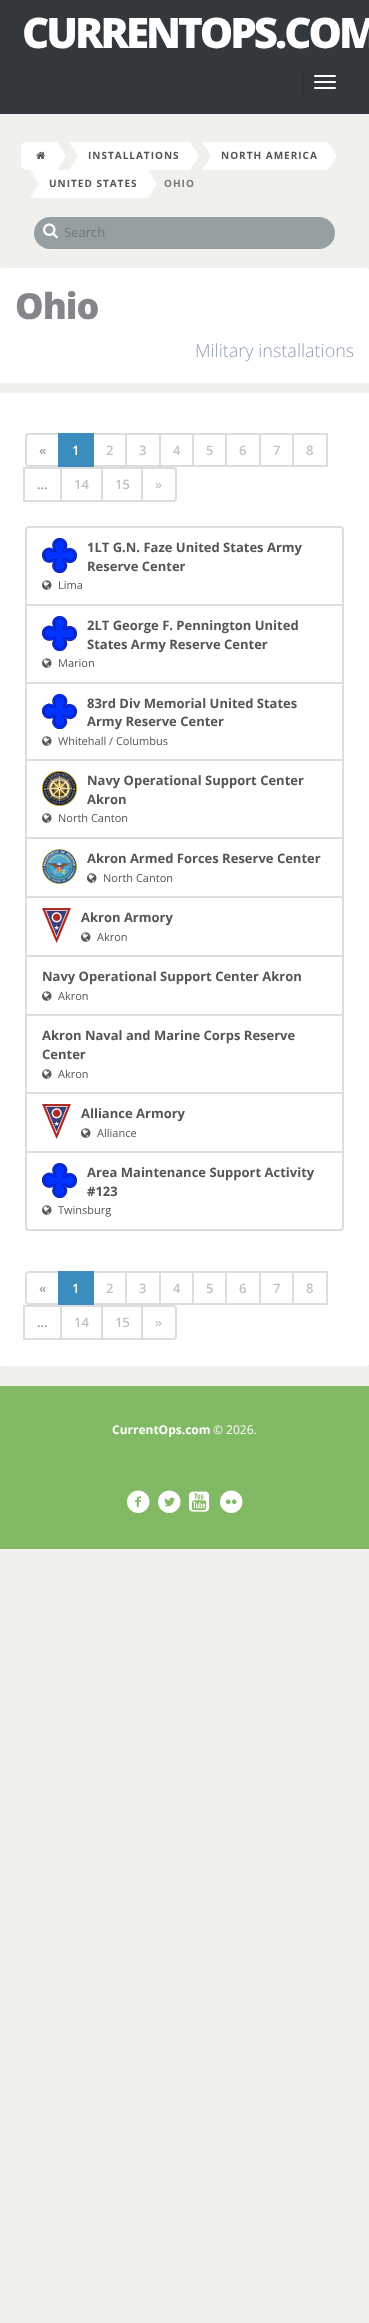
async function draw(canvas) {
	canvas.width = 369;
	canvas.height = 2323;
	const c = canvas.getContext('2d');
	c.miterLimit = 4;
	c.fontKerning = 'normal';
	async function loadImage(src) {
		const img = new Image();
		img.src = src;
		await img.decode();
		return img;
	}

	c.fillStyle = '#f0f0ed';
	c.fillRect(0, 0, 369, 2323);
	c.fillStyle = '#33383d';
	c.fillRect(0, 0, 369, 114);
	c.letterSpacing = '-3px';
	c.font = '800 42px Open Sans';
	c.fillStyle = '#fff';
	c.fillText('CURRENTOPS.COM', 22, 48);
	c.beginPath();
	c.roundRect(303.5, 65.5, 43, 33, 3.5);
	c.strokeStyle = '#333';
	c.stroke();
	c.beginPath();
	c.roundRect(314, 75, 22, 2, 1);
	c.fill();
	c.beginPath();
	c.roundRect(314, 81, 22, 2, 1);
	c.fill();
	c.beginPath();
	c.roundRect(314, 87, 22, 2, 1);
	c.fill();
	c.beginPath();
	c.roundRect(21, 142, 36, 28, [5, 0, 0, 5]);
	c.fill();
	c.drawImage(await loadImage('img1.png'), 36, 151, 10, 8);
	c.beginPath();
	c.moveTo(57, 170);
	c.lineTo(57, 142);
	c.lineTo(66, 156);
	c.closePath();
	c.fill();
	c.fillRect(78, 142, 112, 28);
	c.beginPath();
	c.moveTo(69, 142);
	c.lineTo(78, 142);
	c.lineTo(78, 156);
	c.closePath();
	c.moveTo(78, 170);
	c.lineTo(69, 170);
	c.lineTo(78, 156);
	c.closePath();
	c.fill();
	c.letterSpacing = '1px';
	c.font = 'bold 10px Open Sans';
	c.fillStyle = '#555';
	c.fillText('INSTALLATIONS', 88, 159);
	c.fillStyle = '#fff';
	c.beginPath();
	c.moveTo(190, 170);
	c.lineTo(190, 142);
	c.lineTo(199, 156);
	c.closePath();
	c.fill();
	c.fillRect(211, 142, 117, 28);
	c.beginPath();
	c.moveTo(202, 142);
	c.lineTo(211, 142);
	c.lineTo(211, 156);
	c.closePath();
	c.moveTo(211, 170);
	c.lineTo(202, 170);
	c.lineTo(211, 156);
	c.closePath();
	c.fill();
	c.fillStyle = '#555';
	c.fillText('NORTH AMERICA', 221, 159);
	c.fillStyle = '#fff';
	c.beginPath();
	c.moveTo(328, 170);
	c.lineTo(328, 142);
	c.lineTo(337, 156);
	c.closePath();
	c.fill();
	c.fillRect(39, 170, 109, 28);
	c.beginPath();
	c.moveTo(30, 170);
	c.lineTo(39, 170);
	c.lineTo(39, 184);
	c.closePath();
	c.moveTo(39, 198);
	c.lineTo(30, 198);
	c.lineTo(39, 184);
	c.closePath();
	c.fill();
	c.fillStyle = '#555';
	c.fillText('UNITED STATES', 49, 187);
	c.fillStyle = '#fff';
	c.beginPath();
	c.moveTo(148, 198);
	c.lineTo(148, 170);
	c.lineTo(157, 184);
	c.closePath();
	c.fill();
	c.fillStyle = '#777';
	c.fillText('OHIO', 164, 187);
	c.fillStyle = '#969fa1';
	c.beginPath();
	c.roundRect(34, 217, 301, 32, 16);
	c.fill();
	c.drawImage(await loadImage('img2.png'), 43, 223, 15, 16);
	c.letterSpacing = '0px';
	c.font = '13px Open Sans';
	c.fillStyle = '#777';
	c.fillText('Search', 64, 237);
	c.fillStyle = '#fff';
	c.beginPath();
	c.roundRect(0, 268, 369, 1098, 3);
	c.fill();
	c.fillStyle = '#f0f0ed';
	c.fillRect(0, 383, 369, 10);
	c.letterSpacing = '-1px';
	c.font = '800 36px Open Sans';
	c.fillStyle = '#858689';
	c.fillText('Ohio', 15, 319);
	c.letterSpacing = '0px';
	c.font = '300 18px Open Sans';
	c.fillStyle = '#949fb2';
	c.fillText('Military installations', 195, 357);
	c.beginPath();
	c.roundRect(26, 434, 33, 32, [3, 0, 0, 3]);
	c.strokeStyle = '#ddd';
	c.lineWidth = 2;
	c.stroke();
	c.font = '600 13px Open Sans';
	c.fillStyle = '#999';
	c.fillText('«', 39, 455);
	c.strokeRect(93, 434, 33, 32);
	c.fillStyle = '#3b8dbd';
	c.fillRect(58, 433, 36, 34);
	c.fillStyle = '#fff';
	c.fillText('1', 72, 455);
	c.fillStyle = '#c0c2c7';
	c.fillText('2', 106, 455);
	c.strokeRect(126, 434, 34, 32);
	c.fillText('3', 139, 455);
	c.strokeRect(160, 434, 33, 32);
	c.fillText('4', 173, 455);
	c.strokeRect(193, 434, 33, 32);
	c.fillText('5', 206, 455);
	c.strokeRect(226, 434, 34, 32);
	c.fillText('6', 239, 455);
	c.strokeRect(260, 434, 33, 32);
	c.fillText('7', 273, 455);
	c.strokeRect(293, 434, 34, 32);
	c.fillText('8', 306, 455);
	c.strokeRect(24, 468, 37, 33);
	c.fillStyle = '#999';
	c.fillText('...', 37, 489);
	c.strokeRect(61, 468, 41, 33);
	c.fillStyle = '#c0c2c7';
	c.fillText('14', 74, 489);
	c.strokeRect(102, 468, 40, 33);
	c.fillText('15', 115, 489);
	c.fillStyle = '#fff';
	c.beginPath();
	c.roundRect(142, 468, 34, 33, [0, 3, 3, 0]);
	c.fill();
	c.stroke();
	c.fillStyle = '#c0c2c7';
	c.fillText('»', 155, 489);
	c.beginPath();
	c.roundRect(26, 527, 317, 78, [3, 3, 0, 0]);
	c.stroke();
	c.drawImage(await loadImage('img3.png'), 42, 538, 35, 35);
	c.font = 'bold 13px Open Sans';
	c.fillStyle = '#555';
	c.fillText('1LT G.N. Faze United States Army', 87, 552);
	c.fillText('Reserve Center', 87, 571);
	c.drawImage(await loadImage('img4.png'), 42, 580, 10, 10);
	c.font = '11px Open Sans';
	c.fillText('Lima', 58, 589);
	c.strokeRect(26, 605, 317, 78);
	c.drawImage(await loadImage('img3.png'), 42, 616, 35, 35);
	c.font = 'bold 13px Open Sans';
	c.fillText('2LT George F. Pennington United', 87, 630);
	c.fillText('States Army Reserve Center', 87, 649);
	c.drawImage(await loadImage('img4.png'), 42, 658, 10, 10);
	c.font = '11px Open Sans';
	c.fillText('Marion', 58, 667);
	c.strokeRect(26, 683, 317, 77);
	c.drawImage(await loadImage('img3.png'), 42, 694, 35, 35);
	c.font = 'bold 13px Open Sans';
	c.fillText('83rd Div Memorial United States', 87, 708);
	c.fillText('Army Reserve Center', 87, 726);
	c.drawImage(await loadImage('img4.png'), 42, 736, 10, 10);
	c.font = '11px Open Sans';
	c.fillText('Whitehall / Columbus', 58, 745);
	c.strokeRect(26, 760, 317, 78);
	c.drawImage(await loadImage('img5.png'), 42, 771, 35, 35);
	c.font = 'bold 13px Open Sans';
	c.fillText('Navy Operational Support Center', 87, 785);
	c.fillText('Akron', 87, 804);
	c.drawImage(await loadImage('img4.png'), 42, 813, 10, 10);
	c.font = '11px Open Sans';
	c.fillText('North Canton', 58, 822);
	c.strokeRect(26, 838, 317, 59);
	c.drawImage(await loadImage('img6.png'), 42, 849, 35, 35);
	c.font = 'bold 13px Open Sans';
	c.fillText('Akron Armed Forces Reserve Center', 87, 863);
	c.drawImage(await loadImage('img4.png'), 87, 873, 10, 10);
	c.font = '11px Open Sans';
	c.fillText('North Canton', 103, 882);
	c.strokeRect(26, 897, 317, 59);
	c.drawImage(await loadImage('img7.png'), 42, 908, 29, 35);
	c.font = 'bold 13px Open Sans';
	c.fillText('Akron Armory', 81, 922);
	c.drawImage(await loadImage('img4.png'), 81, 932, 10, 10);
	c.font = '11px Open Sans';
	c.fillText('Akron', 97, 941);
	c.strokeRect(26, 956, 317, 59);
	c.font = 'bold 13px Open Sans';
	c.fillText('Navy Operational Support Center Akron', 42, 981);
	c.drawImage(await loadImage('img4.png'), 42, 991, 10, 10);
	c.font = '11px Open Sans';
	c.fillText('Akron', 58, 1000);
	c.strokeRect(26, 1015, 317, 78);
	c.font = 'bold 13px Open Sans';
	c.fillText('Akron Naval and Marine Corps Reserve', 42, 1040);
	c.fillText('Center', 42, 1059);
	c.drawImage(await loadImage('img4.png'), 42, 1069, 10, 10);
	c.font = '11px Open Sans';
	c.fillText('Akron', 58, 1078);
	c.strokeRect(26, 1093, 317, 59);
	c.drawImage(await loadImage('img7.png'), 42, 1104, 29, 35);
	c.font = 'bold 13px Open Sans';
	c.fillText('Alliance Armory', 81, 1118);
	c.drawImage(await loadImage('img4.png'), 81, 1128, 10, 10);
	c.font = '11px Open Sans';
	c.fillText('Alliance', 97, 1137);
	c.fillStyle = '#fff';
	c.beginPath();
	c.roundRect(26, 1152, 317, 78, [0, 0, 3, 3]);
	c.fill();
	c.stroke();
	c.drawImage(await loadImage('img3.png'), 42, 1163, 35, 35);
	c.font = 'bold 13px Open Sans';
	c.fillStyle = '#555';
	c.fillText('Area Maintenance Support Activity', 87, 1177);
	c.fillText('#123', 87, 1196);
	c.drawImage(await loadImage('img4.png'), 42, 1205, 10, 10);
	c.font = '11px Open Sans';
	c.fillText('Twinsburg', 58, 1214);
	c.beginPath();
	c.roundRect(26, 1272, 33, 32, [3, 0, 0, 3]);
	c.stroke();
	c.font = '600 13px Open Sans';
	c.fillStyle = '#999';
	c.fillText('«', 39, 1293);
	c.strokeRect(93, 1272, 33, 32);
	c.fillStyle = '#3b8dbd';
	c.fillRect(58, 1271, 36, 34);
	c.fillStyle = '#fff';
	c.fillText('1', 72, 1293);
	c.fillStyle = '#c0c2c7';
	c.fillText('2', 106, 1293);
	c.strokeRect(126, 1272, 34, 32);
	c.fillText('3', 139, 1293);
	c.strokeRect(160, 1272, 33, 32);
	c.fillText('4', 173, 1293);
	c.strokeRect(193, 1272, 33, 32);
	c.fillText('5', 206, 1293);
	c.strokeRect(226, 1272, 34, 32);
	c.fillText('6', 239, 1293);
	c.strokeRect(260, 1272, 33, 32);
	c.fillText('7', 273, 1293);
	c.strokeRect(293, 1272, 34, 32);
	c.fillText('8', 306, 1293);
	c.strokeRect(24, 1306, 37, 33);
	c.fillStyle = '#999';
	c.fillText('...', 37, 1327);
	c.strokeRect(61, 1306, 41, 33);
	c.fillStyle = '#c0c2c7';
	c.fillText('14', 74, 1327);
	c.strokeRect(102, 1306, 40, 33);
	c.fillText('15', 115, 1327);
	c.fillStyle = '#fff';
	c.beginPath();
	c.roundRect(142, 1306, 34, 33, [0, 3, 3, 0]);
	c.fill();
	c.stroke();
	c.fillStyle = '#c0c2c7';
	c.fillText('»', 155, 1327);
	c.fillStyle = '#82b964';
	c.fillRect(0, 1386, 369, 163);
	c.font = 'bold 12px Open Sans';
	c.fillStyle = '#fff';
	c.fillText('CurrentOps.com', 112, 1434);
	c.font = '12px Open Sans';
	c.fillText('© 2026.', 213, 1434);
	c.drawImage(await loadImage('img8.png'), 127, 1490, 23, 23);
	c.drawImage(await loadImage('img9.png'), 158, 1490, 23, 23);
	c.drawImage(await loadImage('img10.png'), 189, 1491, 21, 21);
	c.drawImage(await loadImage('img11.png'), 220, 1490, 23, 23);
}

draw(document.querySelector('canvas'));
